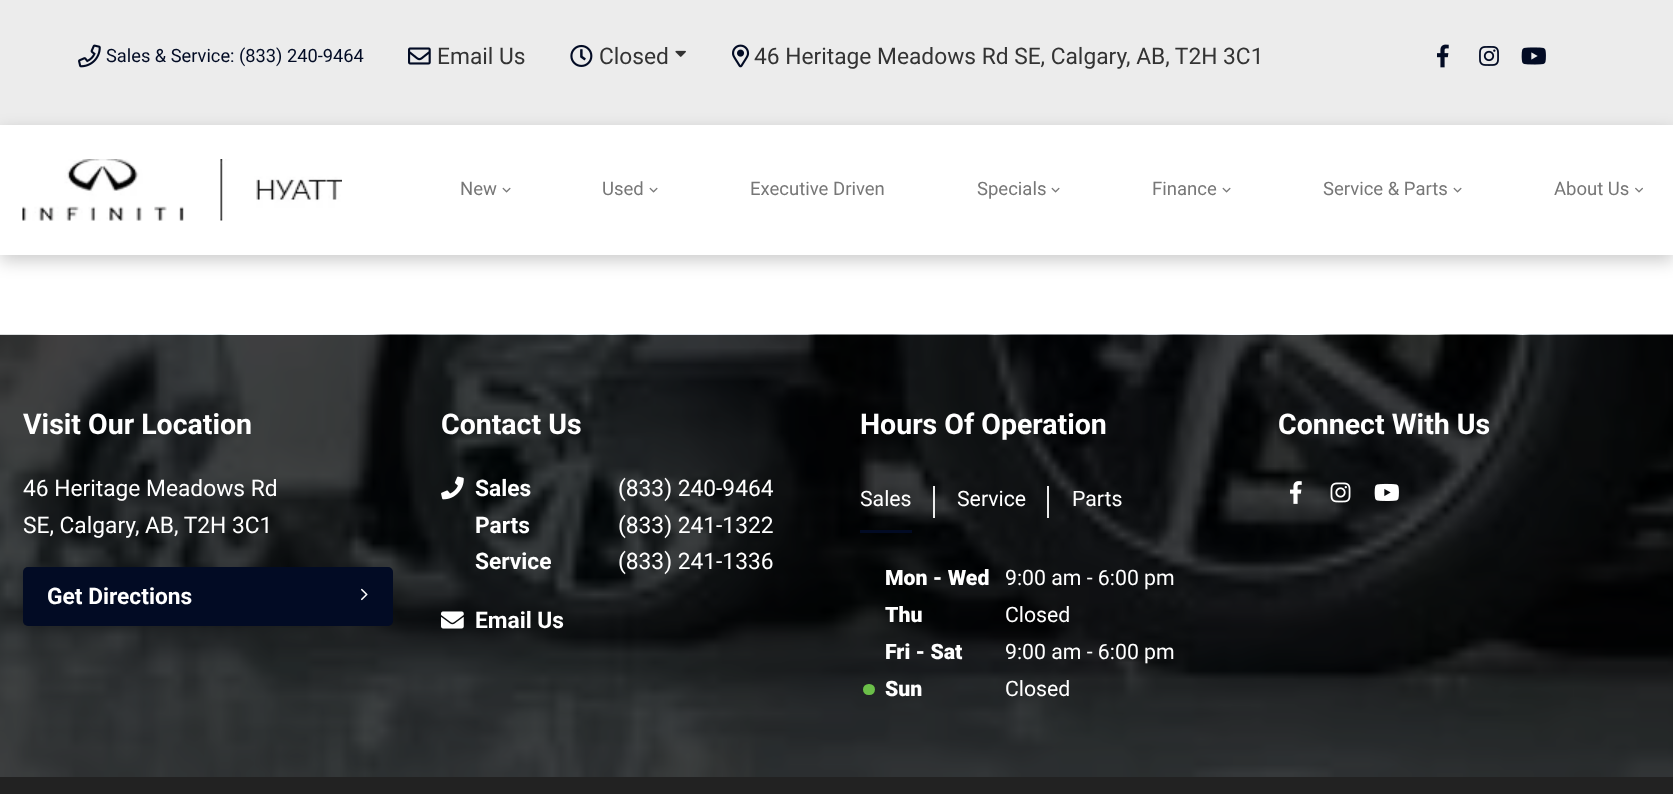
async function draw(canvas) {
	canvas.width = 1673;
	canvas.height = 794;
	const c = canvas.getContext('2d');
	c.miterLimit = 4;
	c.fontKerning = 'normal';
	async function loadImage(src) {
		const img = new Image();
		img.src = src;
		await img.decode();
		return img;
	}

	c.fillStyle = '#fff';
	c.fillRect(0, 0, 1673, 794);
	c.fillStyle = '#ececec';
	c.fillRect(0, 0, 1673, 125);
	c.drawImage(await loadImage('img1.png'), 78, 44, 23, 24);
	c.font = '18.25px Roboto';
	c.fillStyle = '#020b24';
	c.fillText('Sales & Service: (833) 240-9464', 106, 62);
	c.drawImage(await loadImage('img2.png'), 408, 47, 23, 18);
	c.font = '22.75px Roboto';
	c.fillStyle = '#333';
	c.fillText('Email Us', 437, 64);
	c.drawImage(await loadImage('img3.png'), 570, 44, 23, 23);
	c.fillText('Closed', 599, 64);
	c.drawImage(await loadImage('img4.png'), 675, 50, 11, 7);
	c.drawImage(await loadImage('img5.png'), 732, 44, 18, 24);
	c.fillText('46 Heritage Meadows Rd SE, Calgary, AB, T2H 3C1', 754, 64);
	c.drawImage(await loadImage('img6.png'), 1437, 44, 12, 24);
	c.drawImage(await loadImage('img7.png'), 1479, 46, 20, 20);
	c.drawImage(await loadImage('img8.png'), 1521, 47, 25, 18);
	c.save();
	c.beginPath();
	c.moveTo(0, 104);
	c.lineTo(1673, 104);
	c.lineTo(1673, 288);
	c.lineTo(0, 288);
	c.closePath();
	c.moveTo(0, 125);
	c.lineTo(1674, 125);
	c.lineTo(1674, 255);
	c.lineTo(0, 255);
	c.closePath();
	c.clip('evenodd');
	c.fillStyle = '#00000033';
	c.filter = 'blur(8.5px)';
	c.beginPath();
	c.rect(0, 131, 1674, 130);
	c.fill();
	c.filter = 'none';
	c.restore();
	c.drawImage(await loadImage('img9.png'), 22, 159, 320, 62);
	c.font = '18.5px Roboto';
	c.fillStyle = '#777';
	c.fillText('New', 460, 195);
	c.drawImage(await loadImage('img10.png'), 502, 187, 9, 6);
	c.fillText('Used', 602, 195);
	c.drawImage(await loadImage('img10.png'), 649, 187, 9, 6);
	c.fillText('Executive Driven', 750, 195);
	c.fillText('Specials', 977, 195);
	c.drawImage(await loadImage('img10.png'), 1051, 187, 9, 6);
	c.fillText('Finance', 1152, 195);
	c.drawImage(await loadImage('img10.png'), 1222, 187, 9, 6);
	c.fillText('Service & Parts', 1323, 195);
	c.drawImage(await loadImage('img10.png'), 1453, 187, 9, 6);
	c.fillText('About Us', 1554, 195);
	c.drawImage(await loadImage('img11.png'), 1635, 187, 8, 6);
	c.drawImage(await loadImage('img12.png'), 0, 334, 1673, 443);
	c.font = 'bold 28.5px Roboto';
	c.fillStyle = '#fff';
	c.fillText('Visit Our Location', 23, 434);
	c.font = '22.75px Roboto';
	c.fillText('46 Heritage Meadows Rd', 23, 496);
	c.fillText('SE, Calgary, AB, T2H 3C1', 23, 533);
	c.fillStyle = '#020b24';
	c.beginPath();
	c.roundRect(23, 567, 370, 59, 5);
	c.fill();
	c.font = 'bold 22.75px Roboto';
	c.fillStyle = '#fff';
	c.fillText('Get Directions', 47, 604);
	c.drawImage(await loadImage('img13.png'), 361, 588, 7, 13);
	c.font = 'bold 28.5px Roboto';
	c.fillText('Contact Us', 441, 434);
	c.drawImage(await loadImage('img14.png'), 441, 476, 23, 24);
	c.font = 'bold 22.75px Roboto';
	c.fillText('Sales', 475, 496);
	c.font = '22.75px Roboto';
	c.fillText('(833) 240-9464', 618, 496);
	c.font = 'bold 22.75px Roboto';
	c.fillText('Parts', 475, 533);
	c.font = '22.75px Roboto';
	c.fillText('(833) 241-1322', 618, 533);
	c.font = 'bold 22.75px Roboto';
	c.fillText('Service', 475, 569);
	c.font = '22.75px Roboto';
	c.fillText('(833) 241-1336', 618, 569);
	c.drawImage(await loadImage('img15.png'), 441, 611, 23, 18);
	c.font = 'bold 22.75px Roboto';
	c.fillText('Email Us', 475, 628);
	c.font = 'bold 28.5px Roboto';
	c.fillText('Hours Of Operation', 860, 434);
	c.fillStyle = '#020b24';
	c.fillRect(860, 530, 52, 3);
	c.font = '21.25px Roboto';
	c.fillStyle = '#fff';
	c.fillText('Sales', 860, 506);
	c.fillStyle = '#ececec';
	c.fillRect(933, 486, 2, 32);
	c.fillStyle = '#fff';
	c.fillText('Service', 957, 506);
	c.fillStyle = '#ececec';
	c.fillRect(1047, 486, 2, 32);
	c.fillStyle = '#fff';
	c.fillText('Parts', 1072, 506);
	c.font = '900 21.25px Roboto';
	c.fillText('Mon - Wed', 885, 585);
	c.font = '21.25px Roboto';
	c.fillText('9:00 am - 6:00 pm', 1005, 585);
	c.font = '900 21.25px Roboto';
	c.fillText('Thu', 885, 622);
	c.font = '21.25px Roboto';
	c.fillText('Closed', 1005, 622);
	c.font = '900 21.25px Roboto';
	c.fillText('Fri - Sat', 885, 659);
	c.font = '21.25px Roboto';
	c.fillText('9:00 am - 6:00 pm', 1005, 659);
	c.fillStyle = '#6bbf49';
	c.beginPath();
	c.roundRect(863, 684, 12, 11, 5.5);
	c.fill();
	c.font = '900 21.25px Roboto';
	c.fillStyle = '#fff';
	c.fillText('Sun', 885, 696);
	c.font = '21.25px Roboto';
	c.fillText('Closed', 1005, 696);
	c.font = 'bold 28.5px Roboto';
	c.fillText('Connect With Us', 1278, 434);
	c.drawImage(await loadImage('img16.png'), 1290, 481, 12, 23);
	c.drawImage(await loadImage('img17.png'), 1330, 482, 21, 21);
	c.drawImage(await loadImage('img18.png'), 1374, 483, 25, 18);
	c.fillStyle = '#222';
	c.fillRect(0, 777, 1673, 17);
}

draw(document.querySelector('canvas'));
